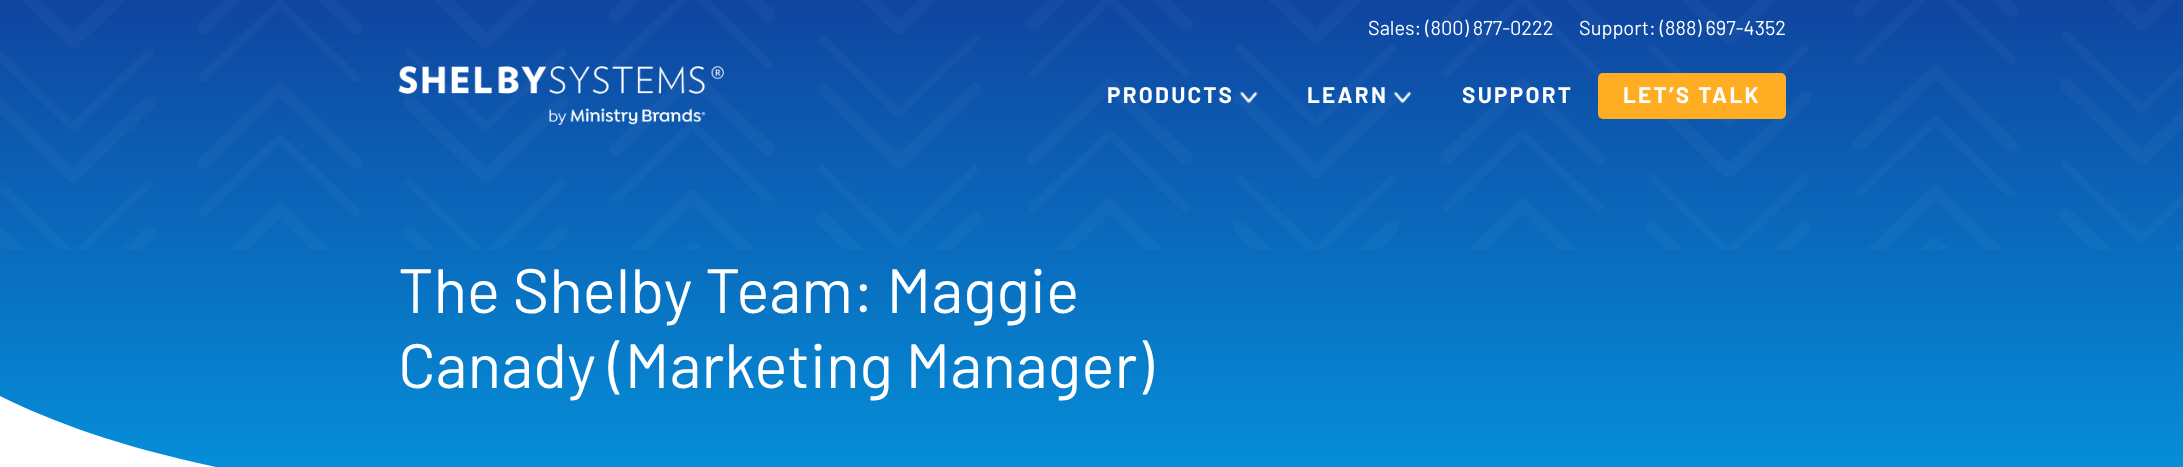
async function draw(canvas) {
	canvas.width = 2183;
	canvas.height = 467;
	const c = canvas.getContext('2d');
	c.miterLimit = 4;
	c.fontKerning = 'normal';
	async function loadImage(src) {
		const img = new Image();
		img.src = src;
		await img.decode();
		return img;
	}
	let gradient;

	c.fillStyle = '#fff';
	c.fillRect(0, 0, 2183, 467);
	gradient = c.createLinearGradient(1092, 0, 1092, 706);
	gradient.addColorStop(0, '#0f45a0');
	gradient.addColorStop(1, '#00b3f4');
	c.fillStyle = gradient;
	c.fillRect(0, 0, 2183, 467);
	c.drawImage(await loadImage('img4.png'), 0, 0, 2183, 250);
	c.font = '20px Barlow';
	c.fillStyle = '#fff';
	c.fillText('Sales: (800) 877-0222', 1368, 35);
	c.fillText('Support: (888) 697-4352', 1579, 35);
	c.drawImage(await loadImage('img1.png'), 398, 66, 326, 59);
	c.letterSpacing = '2.25px';
	c.font = 'bold 22.5px Barlow';
	c.fillText('PRODUCTS', 1107, 103);
	c.drawImage(await loadImage('img2.png'), 1240, 91, 18, 13);
	c.fillText('LEARN', 1307, 103);
	c.drawImage(await loadImage('img3.png'), 1393, 91, 19, 13);
	c.fillText('SUPPORT', 1462, 103);
	c.fillStyle = '#ffae24';
	c.beginPath();
	c.roundRect(1598, 73, 188, 46, 5);
	c.fill();
	c.fillStyle = '#fff';
	c.fillText('LET’S TALK', 1623, 103);
	c.letterSpacing = '0px';
	c.font = '62.5px Barlow';
	c.fillText('The Shelby Team: Maggie', 398, 313);
	c.fillText('Canady (Marketing Manager)', 398, 388);
	c.beginPath();
	c.moveTo(0, 396);
	c.lineTo(0, 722);
	c.lineTo(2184, 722);
	c.lineTo(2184, 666);
	c.bezierCurveTo(1940, 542, 1466, 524, 981, 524);
	c.bezierCurveTo(375, 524, 133, 462, 0, 396);
	c.closePath();
	c.fill();
}

draw(document.querySelector('canvas'));
